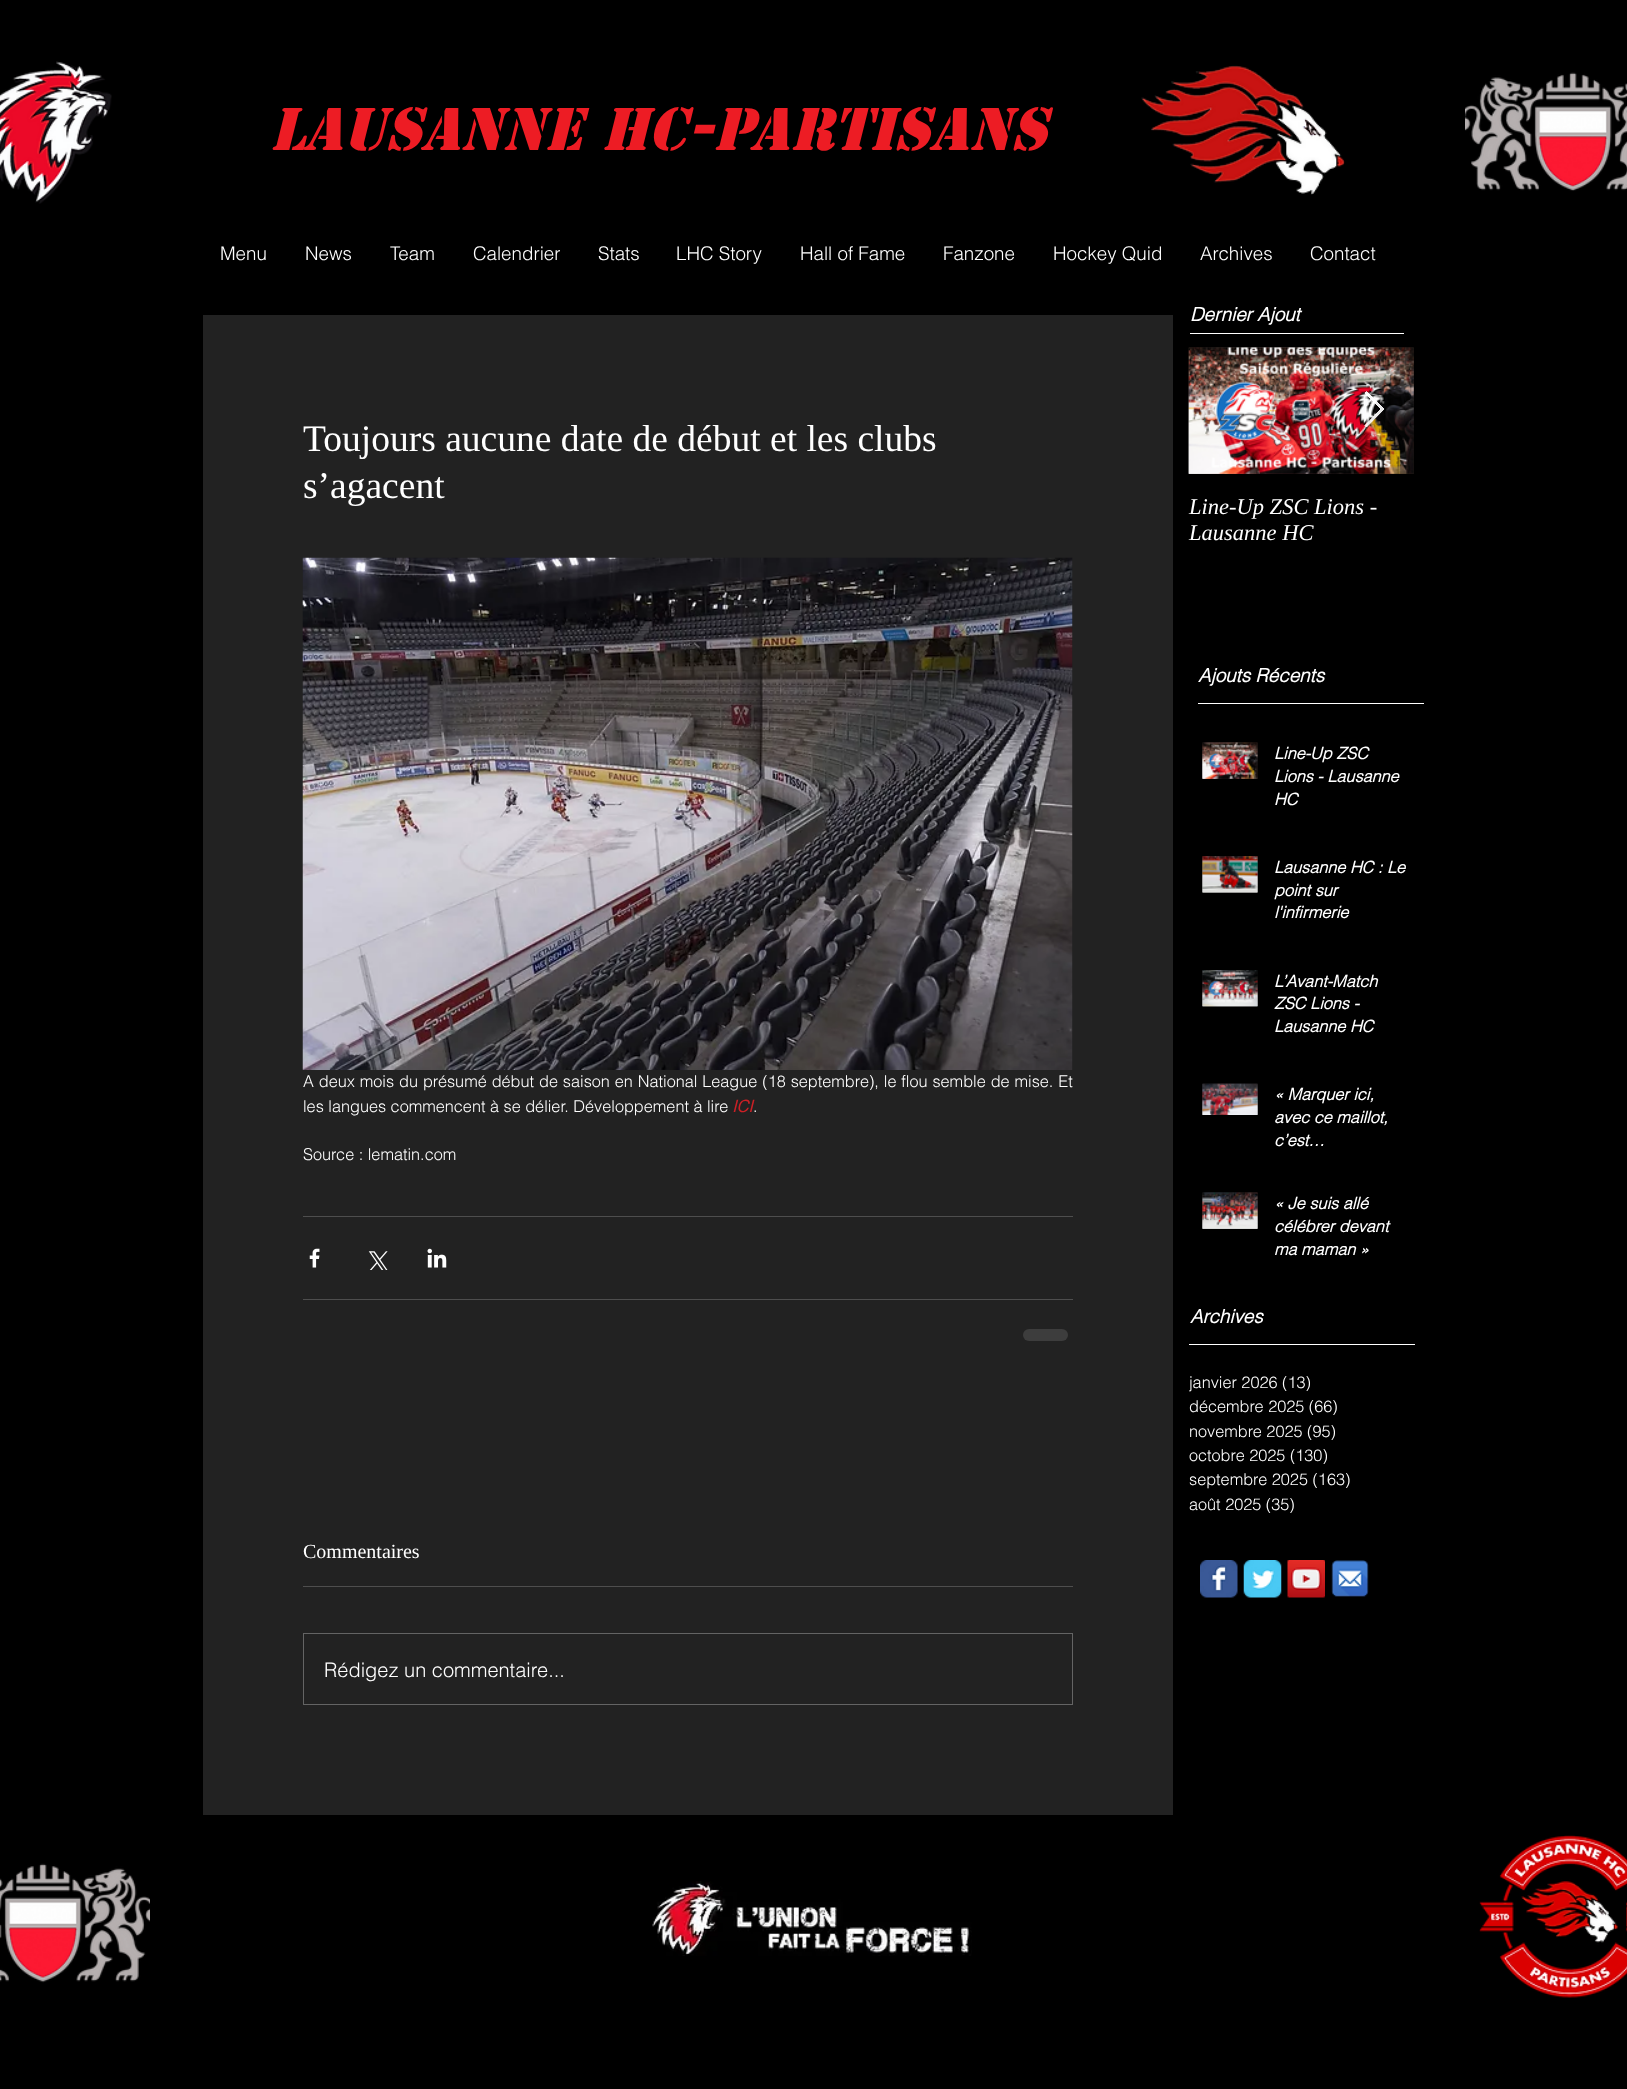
async function draw(canvas) {
	canvas.width = 1627;
	canvas.height = 2089;
	const c = canvas.getContext('2d');
	c.miterLimit = 4;
	c.fontKerning = 'normal';
	async function loadImage(src) {
		const img = new Image();
		img.src = src;
		await img.decode();
		return img;
	}

	c.fillStyle = '#000';
	c.fillRect(0, 0, 1627, 2089);
	c.drawImage(await loadImage('img1.png'), 0, 61, 112, 143);
	c.font = 'italic bold 56.25px "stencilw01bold"';
	c.fillStyle = '#ed1c24';
	c.fillText('Lausanne HC-Partisans', 270, 150);
	c.drawImage(await loadImage('img2.png'), 1141, 65, 204, 130);
	c.drawImage(await loadImage('img3.png'), 1465, 72, 162, 119);
	c.font = '300 18.75px helvetica';
	c.fillStyle = '#fff';
	for (const [text, x, y] of [
		['Menu', 220, 260],
		['News', 305, 260],
		['Team', 390, 260],
		['Calendrier', 473, 260],
		['Stats', 598, 260],
		['LHC Story', 676, 260],
		['Hall of Fame', 800, 260],
		['Fanzone', 943, 260],
		['Hockey Quid', 1053, 260],
		['Archives', 1200, 260],
		['Contact', 1310, 260],
	]) {
		c.fillText(text, x, y);
	}
	c.font = 'italic bold 18.75px helvetica';
	c.fillText('Dernier Ajout', 1190, 321);
	c.fillRect(1190, 333, 214, 1);
	c.fillStyle = '#222';
	c.fillRect(203, 315, 970, 1500);
	c.font = '37.5px Liberation Serif';
	c.fillStyle = '#fff';
	c.fillText('Toujours aucune date de début et les clubs', 303, 451);
	c.fillText('s’agacent', 303, 498);
	c.drawImage(await loadImage('img4.png'), 302, 557, 771, 513);
	c.wordSpacing = '0.4px';
	c.font = '300 16.25px helvetica';
	c.fillText('A deux mois du présumé début de saison en National League (18 septembre), le flou semble de mise. Et', 303, 1087);
	c.wordSpacing = '0px';
	c.fillText('les langues commencent à se délier. Développement à lire', 303, 1112);
	c.font = 'italic bold 16.25px helvetica';
	c.fillStyle = '#cb2026';
	c.fillText('ICI', 732, 1112);
	c.font = '300 16.25px helvetica';
	c.fillStyle = '#fff';
	c.fillText('.', 753, 1112);
	c.fillText('Source : lematin.com', 303, 1160);
	c.fillStyle = '#4e4e4e';
	c.fillRect(303, 1216, 770, 1);
	c.drawImage(await loadImage('img5.png'), 309, 1248, 11, 20);
	c.drawImage(await loadImage('img6.png'), 368, 1251, 20, 19);
	c.drawImage(await loadImage('img7.png'), 427, 1248, 20, 20);
	c.fillRect(303, 1299, 770, 1);
	c.fillStyle = '#3d3d3d';
	c.beginPath();
	c.roundRect(1023, 1329, 45, 12, 6);
	c.fill();
	c.font = '20px Liberation Serif';
	c.fillStyle = '#fff';
	c.fillText('Commentaires', 303, 1558);
	c.fillStyle = '#4e4e4e';
	c.fillRect(303, 1586, 770, 1);
	c.strokeStyle = '#646464';
	c.strokeRect(303.5, 1633.5, 769, 71);
	c.font = '300 20px helvetica';
	c.fillStyle = '#fff';
	c.fillText('Rédigez un commentaire...', 324, 1677);
	c.drawImage(await loadImage('img8.png'), 1188, 347, 226, 127);
	c.drawImage(await loadImage('img9.png'), 1188, 347, 226, 127);
	c.fillStyle = '#ffffffe6';
	c.beginPath();
	c.moveTo(1365, 393);
	c.lineTo(1366.5, 391.5);
	c.lineTo(1384, 409);
	c.lineTo(1366.5, 427);
	c.lineTo(1365, 425.5);
	c.lineTo(1381, 409);
	c.closePath();
	c.fill();
	c.strokeStyle = '#ffffffe6';
	c.stroke();
	c.font = 'italic 22.5px Liberation Serif';
	c.fillStyle = '#fff';
	c.fillText('Line-Up ZSC Lions -', 1189, 514);
	c.fillText('Lausanne HC', 1189, 540);
	c.font = 'italic bold 18.75px helvetica';
	c.fillText('Ajouts Récents', 1198, 682);
	c.fillRect(1198, 703, 226, 1);
	c.drawImage(await loadImage('img10.png'), 1202, 742, 56, 37);
	c.drawImage(await loadImage('img11.png'), 1202, 742, 56, 37);
	c.font = 'italic bold 16.25px helvetica';
	for (const [text, x, y] of [
		['Line-Up ZSC', 1274, 759],
		['Lions - Lausanne', 1274, 782],
		['HC', 1274, 805],
	]) {
		c.fillText(text, x, y);
	}
	c.drawImage(await loadImage('img12.png'), 1202, 856, 56, 37);
	c.drawImage(await loadImage('img13.png'), 1202, 856, 56, 37);
	for (const [text, x, y] of [
		['Lausanne HC : Le', 1274, 873],
		['point sur', 1274, 896],
		['l\'infirmerie', 1274, 918],
	]) {
		c.fillText(text, x, y);
	}
	c.drawImage(await loadImage('img14.png'), 1202, 970, 56, 37);
	c.drawImage(await loadImage('img15.png'), 1202, 970, 56, 37);
	for (const [text, x, y] of [
		['L’Avant-Match', 1274, 987],
		['ZSC Lions -', 1274, 1009],
		['Lausanne HC', 1274, 1032],
	]) {
		c.fillText(text, x, y);
	}
	c.drawImage(await loadImage('img16.png'), 1202, 1083, 56, 32);
	c.drawImage(await loadImage('img17.png'), 1202, 1083, 56, 32);
	for (const [text, x, y] of [
		['« Marquer ici,', 1274, 1100],
		['avec ce maillot,', 1274, 1123],
		['c’est…', 1274, 1146],
	]) {
		c.fillText(text, x, y);
	}
	c.drawImage(await loadImage('img18.png'), 1202, 1192, 56, 37);
	c.drawImage(await loadImage('img19.png'), 1202, 1192, 56, 37);
	for (const [text, x, y] of [
		['« Je suis allé', 1274, 1209],
		['célébrer devant', 1274, 1232],
		['ma maman »', 1274, 1255],
	]) {
		c.fillText(text, x, y);
	}
	c.font = 'italic bold 18.75px helvetica';
	c.fillText('Archives', 1190, 1323);
	c.fillRect(1189, 1344, 226, 1);
	c.font = '300 16.25px helvetica';
	for (const [text, x, y] of [
		['janvier 2026 (13)', 1189, 1388],
		['décembre 2025 (66)', 1189, 1412],
		['novembre 2025 (95)', 1189, 1437],
		['octobre 2025 (130)', 1189, 1461],
		['septembre 2025 (163)', 1189, 1485],
		['août 2025 (35)', 1189, 1510],
	]) {
		c.fillText(text, x, y);
	}
	c.drawImage(await loadImage('img20.png'), 1200, 1560, 38, 38);
	c.drawImage(await loadImage('img21.png'), 1243, 1560, 39, 38);
	c.drawImage(await loadImage('img22.png'), 1287, 1560, 38, 38);
	c.drawImage(await loadImage('img23.png'), 1331, 1560, 38, 37);
	c.drawImage(await loadImage('img24.png'), 0, 1863, 150, 120);
	c.drawImage(await loadImage('img25.png'), 652, 1881, 320, 75);
	c.drawImage(await loadImage('img26.png'), 1479, 1835, 148, 163);
}

draw(document.querySelector('canvas'));
